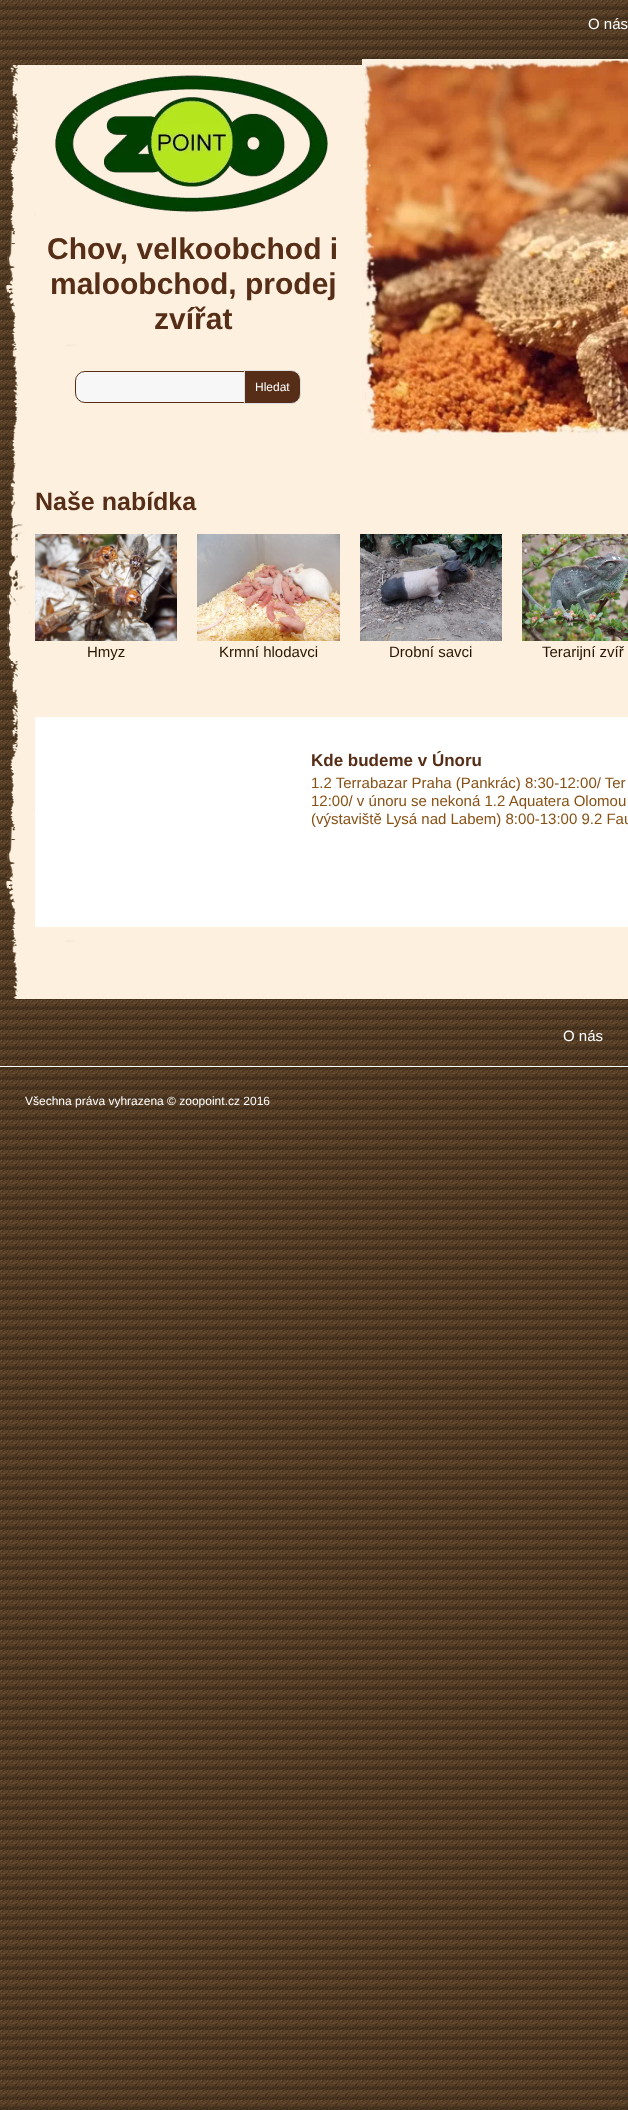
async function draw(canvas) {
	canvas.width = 628;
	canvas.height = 2110;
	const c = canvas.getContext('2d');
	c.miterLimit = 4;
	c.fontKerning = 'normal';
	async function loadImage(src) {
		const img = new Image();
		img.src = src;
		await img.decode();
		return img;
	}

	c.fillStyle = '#fff';
	c.fillRect(0, 0, 628, 2110);
	c.drawImage(await loadImage('img1.png'), 0, 0, 628, 2110);
	c.font = '15px Liberation Sans';
	c.fillText('O nás', 588, 29);
	c.drawImage(await loadImage('img4.png'), 5, 65, 623, 934);
	c.drawImage(await loadImage('img2.png'), 55, 75, 273, 137);
	c.font = 'bold 30px Liberation Sans';
	c.fillStyle = '#562e18';
	for (const [text, x, y] of [
		['Chov, velkoobchod i', 47, 259],
		['maloobchod, prodej', 50, 294],
		['zvířat', 154, 329],
	]) {
		c.fillText(text, x, y);
	}
	c.fillStyle = '#f7f7f7';
	c.beginPath();
	c.roundRect(75.5, 371.5, 169, 31, [9.5, 0, 0, 9.5]);
	c.fill();
	c.strokeStyle = '#562e18';
	c.stroke();
	c.fillStyle = '#562e18';
	c.beginPath();
	c.roundRect(244.5, 370.5, 56, 33, [0, 9.5, 9.5, 0]);
	c.fill();
	c.strokeStyle = '#ddd';
	c.stroke();
	c.font = '12px Liberation Sans';
	c.fillStyle = '#fff';
	c.fillText('Hledat', 255, 391);
	c.drawImage(await loadImage('img3.png'), 362, 59, 266, 375);
	c.font = 'bold 25px Liberation Sans';
	c.fillStyle = '#562e18';
	c.fillText('Naše nabídka', 35, 510);
	c.drawImage(await loadImage('img5.png'), 35, 534, 142, 107);
	c.font = '15px Liberation Sans';
	c.fillStyle = '#271500';
	c.fillText('Hmyz', 87, 657);
	c.drawImage(await loadImage('img6.png'), 197, 534, 143, 107);
	c.fillText('Krmní hlodavci', 219, 657);
	c.drawImage(await loadImage('img7.png'), 360, 534, 142, 107);
	c.fillText('Drobní savci', 389, 657);
	c.drawImage(await loadImage('img8.png'), 522, 534, 106, 107);
	c.fillText('Terarijní zvíř', 542, 657);
	c.fillStyle = '#fff';
	c.fillRect(35, 717, 593, 210);
	c.font = 'bold 17px Liberation Sans';
	c.fillStyle = '#562e18';
	c.fillText('Kde budeme v Únoru', 311, 766);
	c.font = '15px Liberation Sans';
	c.fillStyle = '#875115';
	for (const [text, x, y] of [
		['1.2 Terrabazar Praha (Pankrác) 8:30-12:00/ Ter', 311, 788],
		['12:00/ v únoru se nekoná 1.2 Aquatera Olomou', 311, 806],
		['(výstaviště Lysá nad Labem) 8:00-13:00 9.2 Fau', 311, 824],
	]) {
		c.fillText(text, x, y);
	}
	c.fillStyle = '#fff';
	c.fillText('O nás', 563, 1041);
	c.fillRect(0, 1066, 628, 1);
	c.font = '12px Liberation Sans';
	c.fillText('Všechna práva vyhrazena © zoopoint.cz 2016', 25, 1105);
}

draw(document.querySelector('canvas'));
